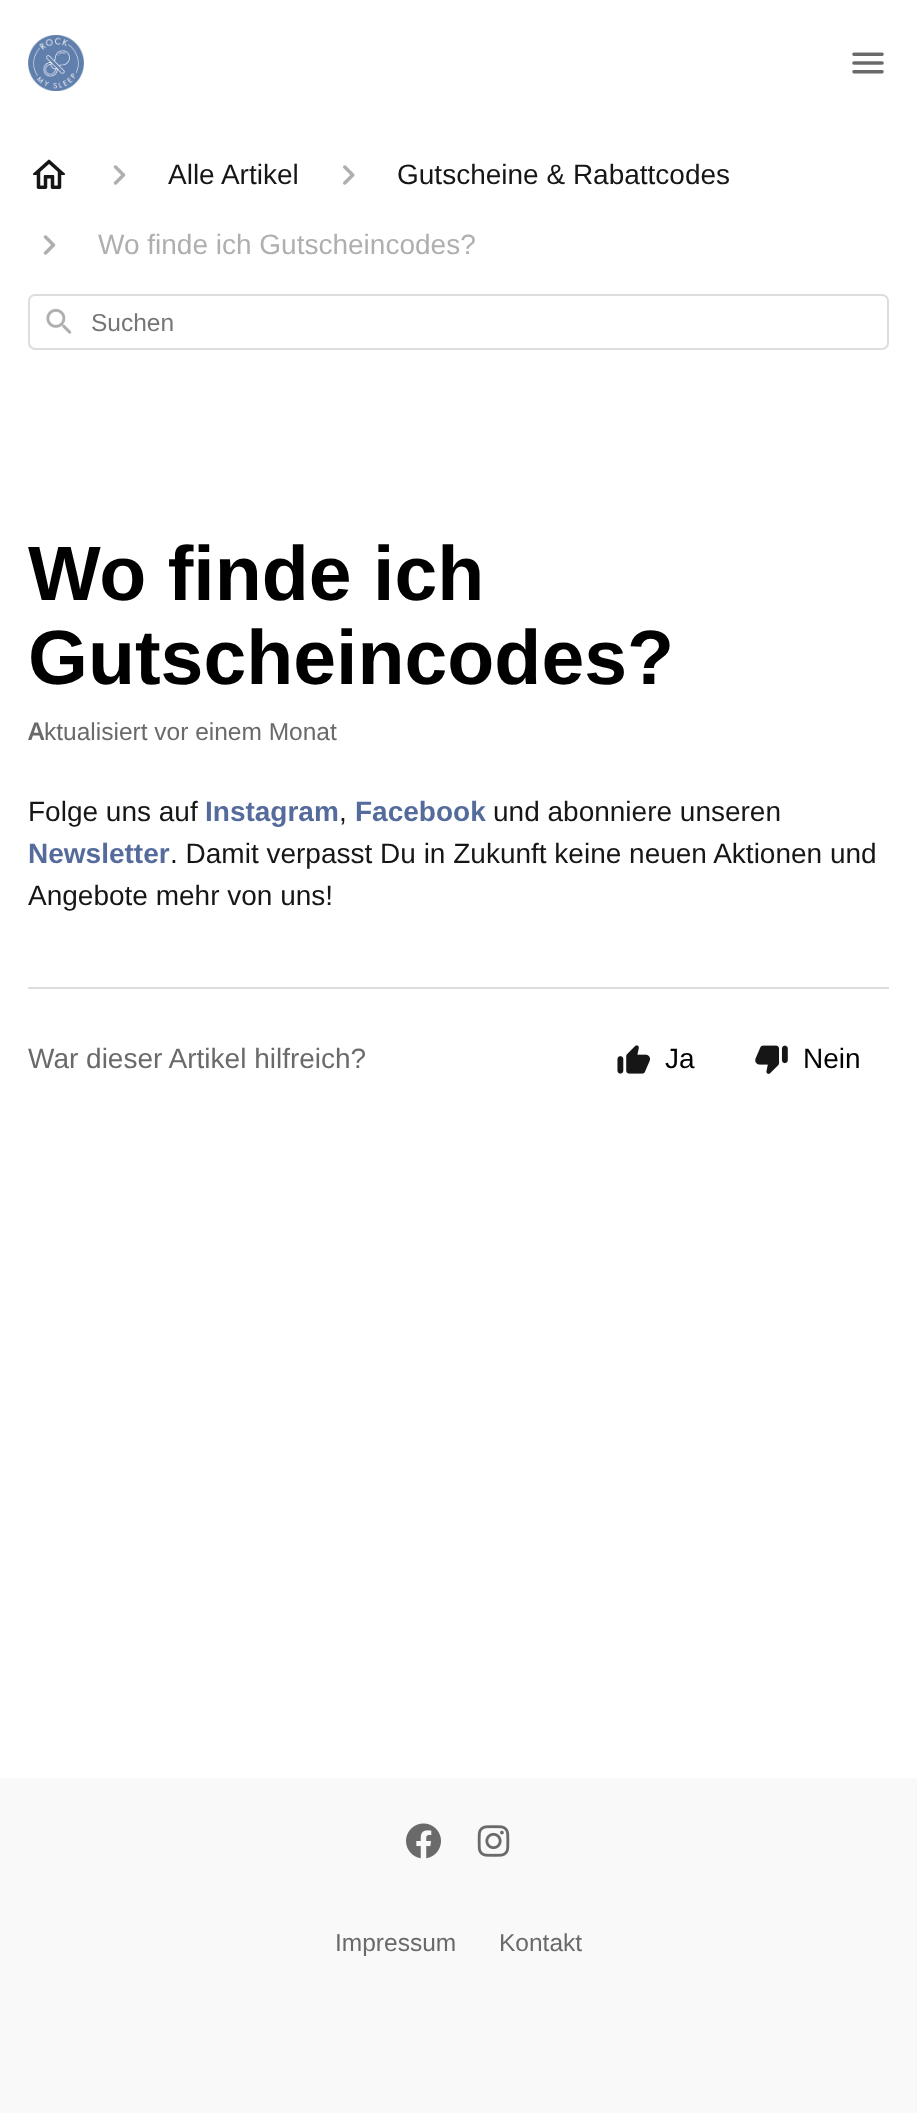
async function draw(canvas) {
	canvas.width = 917;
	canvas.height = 2113;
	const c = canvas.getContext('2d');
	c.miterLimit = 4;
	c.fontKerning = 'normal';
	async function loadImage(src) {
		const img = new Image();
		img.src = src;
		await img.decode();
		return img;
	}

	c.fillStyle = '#fff';
	c.fillRect(0, 0, 917, 2113);
	c.drawImage(await loadImage('img1.png'), 28, 35, 56, 56);
	c.drawImage(await loadImage('img2.png'), 852, 52, 32, 22);
	c.drawImage(await loadImage('img3.png'), 32, 159, 34, 30);
	c.drawImage(await loadImage('img4.png'), 113, 165, 13, 20);
	c.font = '28px Liberation Sans';
	c.fillStyle = '#161616';
	c.fillText('Alle Artikel', 168, 184);
	c.drawImage(await loadImage('img5.png'), 343, 165, 12, 20);
	c.fillText('Gutscheine & Rabattcodes', 397, 184);
	c.drawImage(await loadImage('img4.png'), 43, 235, 13, 20);
	c.fillStyle = '#afafaf';
	c.fillText('Wo finde ich Gutscheincodes?', 98, 254);
	c.beginPath();
	c.roundRect(29, 295, 859, 54, 6);
	c.strokeStyle = '#ddd';
	c.lineWidth = 2;
	c.stroke();
	c.drawImage(await loadImage('img6.png'), 46, 308, 26, 26);
	c.font = '24.5px Liberation Sans';
	c.fillStyle = '#757575';
	c.fillText('Suchen', 91, 331);
	c.font = 'bold 77px Liberation Sans';
	c.fillStyle = '#000';
	c.fillText('Wo finde ich', 28, 600);
	c.fillText('Gutscheincodes?', 28, 684);
	c.font = '600 24.5px Noto Sans';
	c.fillStyle = '#6a6a6a';
	c.fillText('A', 28, 740);
	c.font = '24.5px Liberation Sans';
	c.fillText('ktualisiert vor einem Monat', 44, 740);
	c.font = '28px Liberation Sans';
	c.fillStyle = '#161616';
	c.fillText('Folge uns auf', 28, 821);
	c.font = 'bold 28px Liberation Sans';
	c.fillStyle = '#546b9b';
	c.fillText('Instagram', 205, 821);
	c.font = '28px Liberation Sans';
	c.fillStyle = '#161616';
	c.fillText(',', 339, 821);
	c.font = 'bold 28px Liberation Sans';
	c.fillStyle = '#546b9b';
	c.fillText('Facebook', 355, 821);
	c.font = '28px Liberation Sans';
	c.fillStyle = '#161616';
	c.fillText('und abonniere unseren', 493, 821);
	c.font = 'bold 28px Liberation Sans';
	c.fillStyle = '#546b9b';
	c.fillText('Newsletter', 28, 863);
	c.font = '28px Liberation Sans';
	c.fillStyle = '#161616';
	c.fillText('. Damit verpasst Du in Zukunft keine neuen Aktionen und', 170, 863);
	c.fillText('Angebote mehr von uns!', 28, 905);
	c.fillStyle = '#ddd';
	c.fillRect(28, 987, 861, 2);
	c.fillStyle = '#6a6a6a';
	c.fillText('War dieser Artikel hilfreich?', 28, 1068);
	c.drawImage(await loadImage('img7.png'), 617, 1045, 33, 29);
	c.fillStyle = '#000';
	c.fillText('Ja', 665, 1068);
	c.drawImage(await loadImage('img8.png'), 755, 1045, 33, 29);
	c.fillText('Nein', 803, 1068);
	c.fillStyle = '#f9f9f9';
	c.fillRect(0, 1778, 917, 335);
	c.drawImage(await loadImage('img9.png'), 406, 1823, 35, 36);
	c.drawImage(await loadImage('img10.png'), 477, 1825, 33, 32);
	c.font = '24.5px Liberation Sans';
	c.fillStyle = '#6a6a6a';
	c.fillText('Impressum', 335, 1951);
	c.fillText('Kontakt', 499, 1951);
}

draw(document.querySelector('canvas'));
